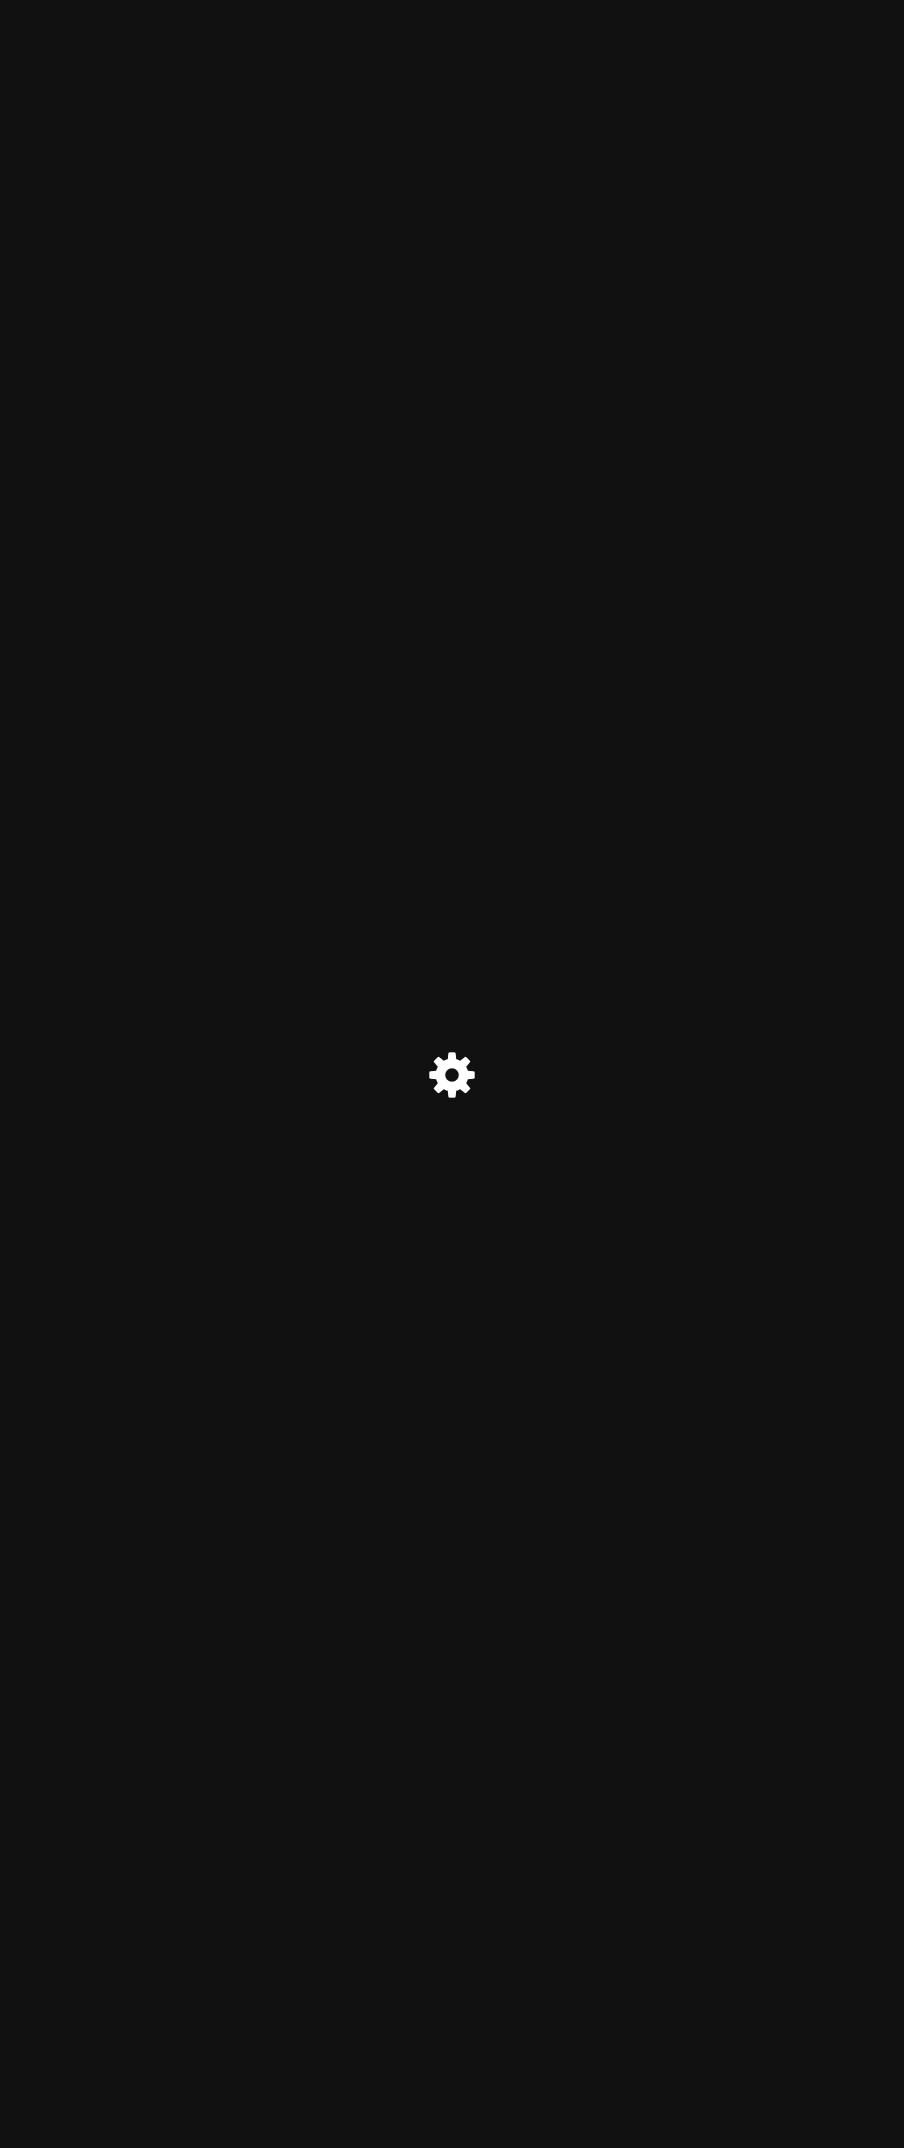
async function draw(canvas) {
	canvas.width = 904;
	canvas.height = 2148;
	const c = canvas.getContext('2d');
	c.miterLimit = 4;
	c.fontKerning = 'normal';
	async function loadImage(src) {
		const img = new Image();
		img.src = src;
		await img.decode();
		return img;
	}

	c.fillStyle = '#111';
	c.fillRect(0, 0, 904, 2148);
	c.drawImage(await loadImage('img1.png'), 429, 1052, 46, 46);
}

draw(document.querySelector('canvas'));
